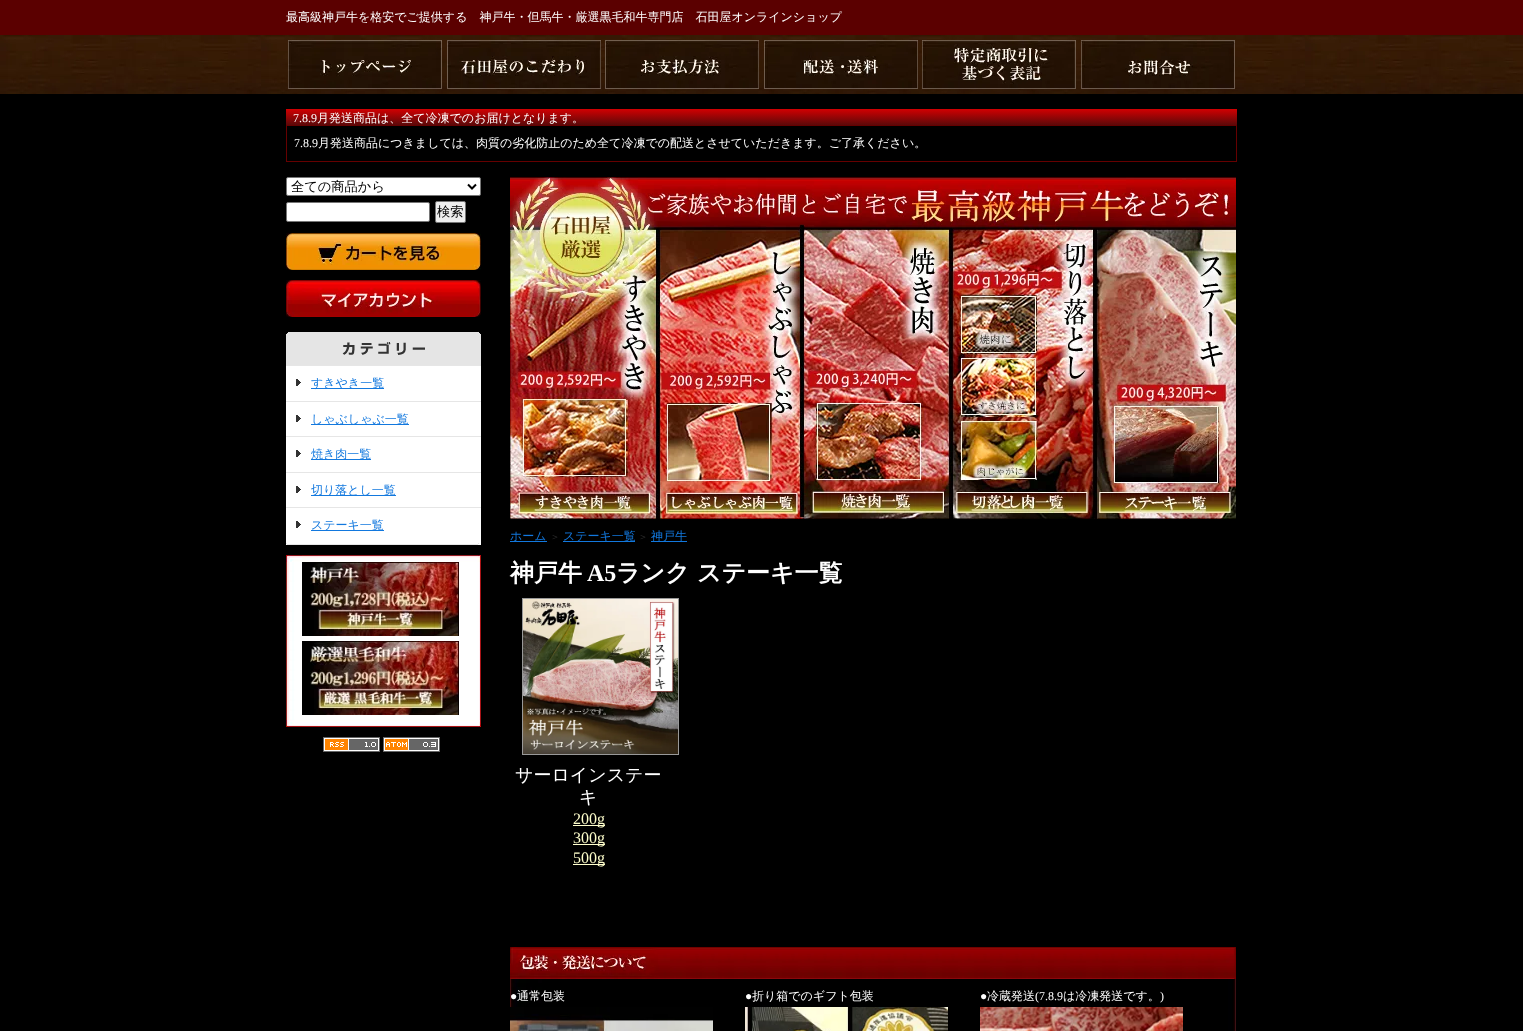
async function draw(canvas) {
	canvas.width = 1523;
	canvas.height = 1031;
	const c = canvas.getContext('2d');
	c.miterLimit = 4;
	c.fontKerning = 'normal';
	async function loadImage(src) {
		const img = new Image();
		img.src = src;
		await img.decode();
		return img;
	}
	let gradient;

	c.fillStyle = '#000';
	c.fillRect(0, 0, 1523, 1031);
	c.fillStyle = '#5b0000';
	c.fillRect(0, 0, 1523, 35);
	c.font = '500 12px WenQuanYi Zen Hei';
	c.fillStyle = '#fff';
	c.fillText('最高級神戸牛を格安でご提供する　神戸牛・但馬牛・厳選黒毛和牛専門店　石田屋オンラインショップ', 286, 21);
	c.drawImage(await loadImage('img1.png'), 0, 35, 1523, 59);
	c.drawImage(await loadImage('img2.png'), 288, 40, 154, 49);
	c.drawImage(await loadImage('img3.png'), 447, 40, 154, 49);
	c.drawImage(await loadImage('img4.png'), 605, 40, 154, 49);
	c.drawImage(await loadImage('img5.png'), 764, 40, 154, 49);
	c.drawImage(await loadImage('img6.png'), 922, 40, 154, 49);
	c.drawImage(await loadImage('img7.png'), 1081, 40, 154, 49);
	gradient = c.createLinearGradient(762, 109, 762, 125);
	gradient.addColorStop(0, '#d20002');
	gradient.addColorStop(1, '#5c0909');
	c.fillStyle = gradient;
	c.fillRect(286, 109, 951, 16);
	c.font = '12px Liberation Serif';
	c.fillStyle = '#fff';
	c.fillText('7.8.9', 293, 122);
	c.font = '500 12px WenQuanYi Zen Hei';
	c.fillText('月発送商品は、全て冷凍でのお届けとなります。', 317, 122);
	c.strokeStyle = '#600';
	c.strokeRect(286.5, 125.5, 950, 36);
	c.font = '12px Liberation Serif';
	c.fillText('7.8.9', 294, 147);
	c.font = '500 12px WenQuanYi Zen Hei';
	c.fillText('月発送商品につきましては、肉質の劣化防止のため全て冷凍での配送とさせていただきます。ご了承ください。', 318, 147);
	c.beginPath();
	c.roundRect(286.5, 177.5, 194, 18, 1.5);
	c.fill();
	c.strokeStyle = '#767676';
	c.stroke();
	c.beginPath();
	c.moveTo(468, 184.5);
	c.lineTo(472, 188.5);
	c.lineTo(476, 184.5);
	c.strokeStyle = '#000';
	c.lineWidth = 2;
	c.stroke();
	c.font = '500 13.25px WenQuanYi Zen Hei';
	c.fillStyle = '#000';
	c.fillText('全ての商品から', 291, 191);
	c.fillStyle = '#fff';
	c.beginPath();
	c.roundRect(286.5, 202.5, 143, 19, 1.5);
	c.fill();
	c.strokeStyle = '#767676';
	c.lineWidth = 1;
	c.stroke();
	c.fillStyle = '#efefef';
	c.beginPath();
	c.roundRect(435.5, 201.5, 30, 21, 1.5);
	c.fill();
	c.stroke();
	c.fillStyle = '#000';
	c.fillText('検索', 437, 216);
	c.drawImage(await loadImage('img8.png'), 286, 233, 195, 37);
	c.drawImage(await loadImage('img9.png'), 286, 280, 195, 37);
	c.drawImage(await loadImage('img10.png'), 286, 332, 195, 33);
	c.fillStyle = '#fff';
	c.fillRect(286, 366, 195, 35);
	c.fillStyle = '#e6e6e6';
	c.fillRect(286, 365, 195, 1);
	c.drawImage(await loadImage('img11.png'), 296, 379, 5, 7);
	c.fillStyle = '#1278de';
	c.fillRect(311, 388, 73, 1);
	c.font = '500 12px WenQuanYi Zen Hei';
	c.fillText('すきやき一覧', 311, 387);
	c.fillStyle = '#fff';
	c.fillRect(286, 402, 195, 34);
	c.fillStyle = '#e6e6e6';
	c.fillRect(286, 401, 195, 1);
	c.drawImage(await loadImage('img11.png'), 296, 415, 5, 7);
	c.fillStyle = '#1278de';
	c.fillRect(311, 424, 98, 1);
	c.fillText('しゃぶしゃぶ一覧', 311, 423);
	c.fillStyle = '#fff';
	c.fillRect(286, 437, 195, 35);
	c.fillStyle = '#e6e6e6';
	c.fillRect(286, 436, 195, 1);
	c.drawImage(await loadImage('img11.png'), 296, 450, 5, 7);
	c.fillStyle = '#1278de';
	c.fillRect(311, 459, 60, 1);
	c.fillText('焼き肉一覧', 311, 458);
	c.fillStyle = '#fff';
	c.fillRect(286, 473, 195, 34);
	c.fillStyle = '#e6e6e6';
	c.fillRect(286, 472, 195, 1);
	c.drawImage(await loadImage('img11.png'), 296, 486, 5, 7);
	c.fillStyle = '#1278de';
	c.fillRect(311, 495, 85, 1);
	c.fillText('切り落とし一覧', 311, 494);
	c.fillStyle = '#fff';
	c.fillRect(286, 508, 195, 37);
	c.drawImage(await loadImage('img12.png'), 286, 543, 193, 2);
	c.fillStyle = '#e6e6e6';
	c.fillRect(286, 507, 195, 1);
	c.drawImage(await loadImage('img11.png'), 296, 521, 5, 7);
	c.fillStyle = '#1278de';
	c.fillRect(311, 530, 73, 1);
	c.fillText('ステーキ一覧', 311, 529);
	c.drawImage(await loadImage('img13.png'), 286, 555, 195, 7);
	c.drawImage(await loadImage('img14.png'), 286, 562, 195, 79);
	c.drawImage(await loadImage('img15.png'), 302, 562, 157, 74);
	c.drawImage(await loadImage('img14.png'), 286, 641, 195, 79);
	c.drawImage(await loadImage('img16.png'), 302, 641, 157, 74);
	c.drawImage(await loadImage('img17.png'), 286, 720, 195, 7);
	c.drawImage(await loadImage('img18.png'), 323, 737, 57, 15);
	c.drawImage(await loadImage('img19.png'), 383, 737, 57, 15);
	c.drawImage(await loadImage('img20.png'), 510, 177, 726, 342);
	c.fillRect(510, 541, 37, 1);
	c.fillText('ホーム', 510, 540);
	c.font = '500 10px WenQuanYi Zen Hei';
	c.fillStyle = '#333';
	c.fillText('＞', 550, 540);
	c.fillStyle = '#1278de';
	c.fillRect(563, 541, 72, 1);
	c.font = '500 12px WenQuanYi Zen Hei';
	c.fillText('ステーキ一覧', 563, 540);
	c.font = '500 10px WenQuanYi Zen Hei';
	c.fillStyle = '#333';
	c.fillText('＞', 638, 540);
	c.fillStyle = '#1278de';
	c.fillRect(651, 541, 36, 1);
	c.font = '500 12px WenQuanYi Zen Hei';
	c.fillText('神戸牛', 651, 540);
	c.font = 'bold 24px WenQuanYi Zen Hei';
	c.fillStyle = '#fff';
	c.fillText('神戸牛', 510, 581);
	c.font = 'bold 24px Liberation Serif';
	c.fillText('A5', 587, 581);
	c.font = 'bold 24px WenQuanYi Zen Hei';
	c.fillText('ランク ステーキ一覧', 616, 581);
	c.strokeStyle = '#999';
	c.strokeRect(522.5, 598.5, 156, 156);
	c.drawImage(await loadImage('img21.png'), 523, 599, 155, 155);
	c.font = '500 18px WenQuanYi Zen Hei';
	c.fillText('サーロインステー', 515, 781);
	c.fillText('キ', 579, 803);
	c.fillStyle = '#ffc';
	c.fillRect(573, 825, 32, 1);
	c.font = '16px Liberation Serif';
	c.fillText('200g', 573, 824);
	c.fillRect(573, 844, 32, 1);
	c.fillText('300g', 573, 843);
	c.fillRect(573, 864, 32, 1);
	c.fillText('500g', 573, 863);
	c.drawImage(await loadImage('img22.png'), 510, 979, 726, 52);
	c.drawImage(await loadImage('img23.png'), 510, 947, 726, 32);
	c.font = '12px Liberation Serif';
	c.fillStyle = '#fff';
	c.fillText('●', 510, 1000);
	c.font = '500 12px WenQuanYi Zen Hei';
	c.fillText('通常包装', 517, 1000);
	c.drawImage(await loadImage('img24.png'), 510, 1007, 203, 24);
	c.font = '12px Liberation Serif';
	c.fillText('●', 745, 1000);
	c.font = '500 12px WenQuanYi Zen Hei';
	c.fillText('折り箱でのギフト包装', 752, 1000);
	c.drawImage(await loadImage('img25.png'), 745, 1007, 203, 24);
	c.font = '12px Liberation Serif';
	c.fillText('●', 980, 1000);
	c.font = '500 12px WenQuanYi Zen Hei';
	c.fillText('冷蔵発送', 987, 1000);
	c.font = '12px Liberation Serif';
	c.fillText('(7.8.9', 1035, 1000);
	c.font = '500 12px WenQuanYi Zen Hei';
	c.fillText('は冷凍発送です。', 1063, 1000);
	c.font = '12px Liberation Serif';
	c.fillText(')', 1160, 1000);
	c.drawImage(await loadImage('img26.png'), 980, 1007, 203, 24);
}

draw(document.querySelector('canvas'));
